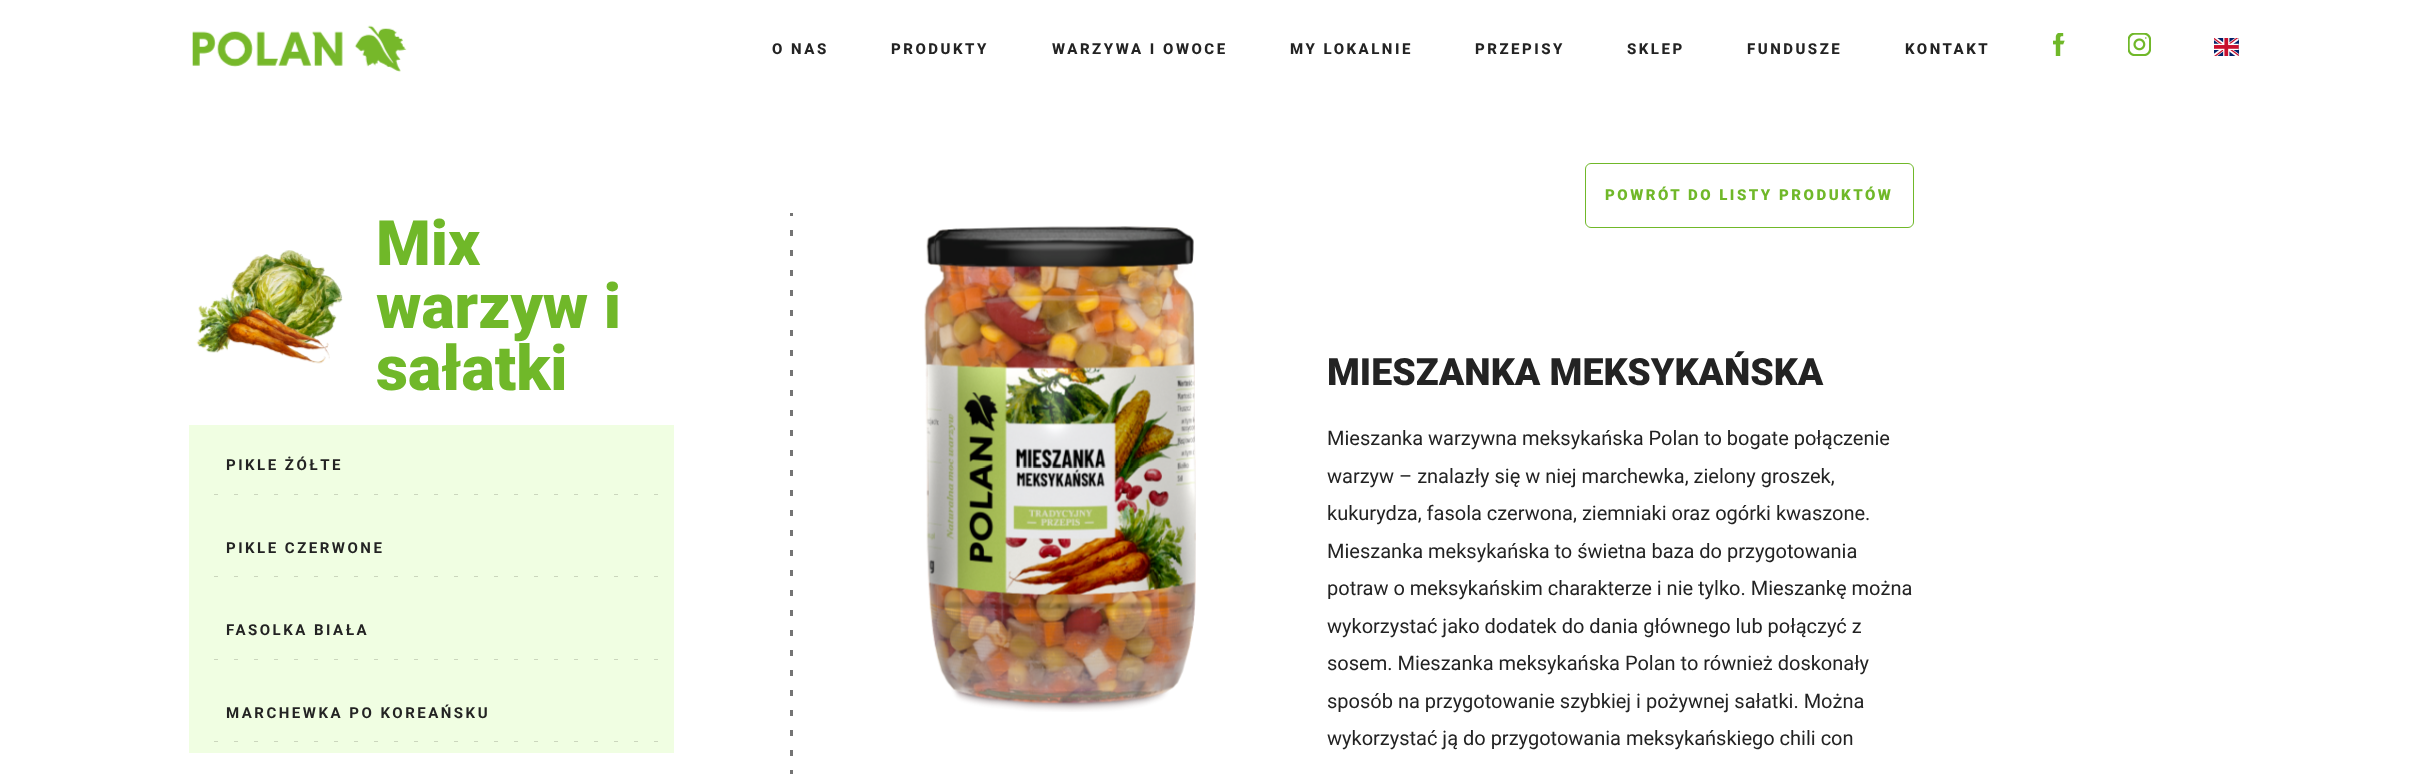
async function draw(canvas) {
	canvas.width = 2427;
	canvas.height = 774;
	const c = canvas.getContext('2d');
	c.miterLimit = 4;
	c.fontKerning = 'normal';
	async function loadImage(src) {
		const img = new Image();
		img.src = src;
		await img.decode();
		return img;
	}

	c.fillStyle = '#fff';
	c.fillRect(0, 0, 2427, 774);
	c.drawImage(await loadImage('img1.png'), 192, 25, 215, 47);
	c.letterSpacing = '2.5px';
	c.font = '800 15px Roboto';
	c.fillStyle = '#232323';
	for (const [text, x, y] of [
		['O NAS', 772, 54],
		['PRODUKTY', 891, 54],
		['WARZYWA I OWOCE', 1052, 54],
		['MY LOKALNIE', 1290, 54],
		['PRZEPISY', 1475, 54],
		['SKLEP', 1627, 54],
		['FUNDUSZE', 1747, 54],
		['KONTAKT', 1905, 54],
	]) {
		c.fillText(text, x, y);
	}
	c.drawImage(await loadImage('img2.png'), 2053, 33, 12, 23);
	c.drawImage(await loadImage('img3.png'), 2128, 33, 23, 23);
	c.drawImage(await loadImage('img4.png'), 2214, 38, 25, 18);
	c.beginPath();
	c.roundRect(1585.5, 163.5, 328, 64, 5.5);
	c.strokeStyle = '#70b829';
	c.stroke();
	c.font = '900 15px Roboto';
	c.fillStyle = '#70b829';
	c.fillText('POWRÓT DO LISTY PRODUKTÓW', 1605, 200);
	c.drawImage(await loadImage('img5.png'), 790, 213, 3, 561);
	c.drawImage(await loadImage('img6.png'), 196, 250, 147, 114);
	c.letterSpacing = '0px';
	c.font = '900 62.5px Roboto';
	for (const [text, x, y] of [
		['Mix', 376, 265],
		['warzyw i', 376, 328],
		['sałatki', 376, 390],
	]) {
		c.fillText(text, x, y);
	}
	c.fillStyle = '#f0fee2';
	c.fillRect(189, 425, 485, 328);
	c.letterSpacing = '2.5px';
	c.font = 'bold 15px Roboto';
	c.fillStyle = '#232323';
	c.fillText('PIKLE ŻÓŁTE', 226, 470);
	c.drawImage(await loadImage('img7.png'), 214, 494, 444, 1);
	c.fillText('PIKLE CZERWONE', 226, 553);
	c.drawImage(await loadImage('img7.png'), 214, 576, 444, 1);
	c.fillText('FASOLKA BIAŁA', 226, 635);
	c.drawImage(await loadImage('img7.png'), 214, 659, 444, 1);
	c.fillText('MARCHEWKA PO KOREAŃSKU', 226, 718);
	c.drawImage(await loadImage('img7.png'), 214, 741, 444, 1);
	c.drawImage(await loadImage('img8.png'), 924, 226, 272, 486);
	c.letterSpacing = '0px';
	c.font = '900 37.5px Roboto';
	c.fillText('MIESZANKA MEKSYKAŃSKA', 1327, 385);
	c.font = '20px Roboto';
	for (const [text, x, y] of [
		['Mieszanka warzywna meksykańska Polan to bogate połączenie', 1327, 445],
		['warzyw – znalazły się w niej marchewka, zielony groszek,', 1327, 483],
		['kukurydza, fasola czerwona, ziemniaki oraz ogórki kwaszone.', 1327, 520],
		['Mieszanka meksykańska to świetna baza do przygotowania', 1327, 558],
		['potraw o meksykańskim charakterze i nie tylko. Mieszankę można', 1327, 595],
		['wykorzystać jako dodatek do dania głównego lub połączyć z', 1327, 633],
		['sosem. Mieszanka meksykańska Polan to również doskonały', 1327, 670],
		['sposób na przygotowanie szybkiej i pożywnej sałatki. Można', 1327, 708],
		['wykorzystać ją do przygotowania meksykańskiego chili con', 1327, 745],
	]) {
		c.fillText(text, x, y);
	}
}

draw(document.querySelector('canvas'));
